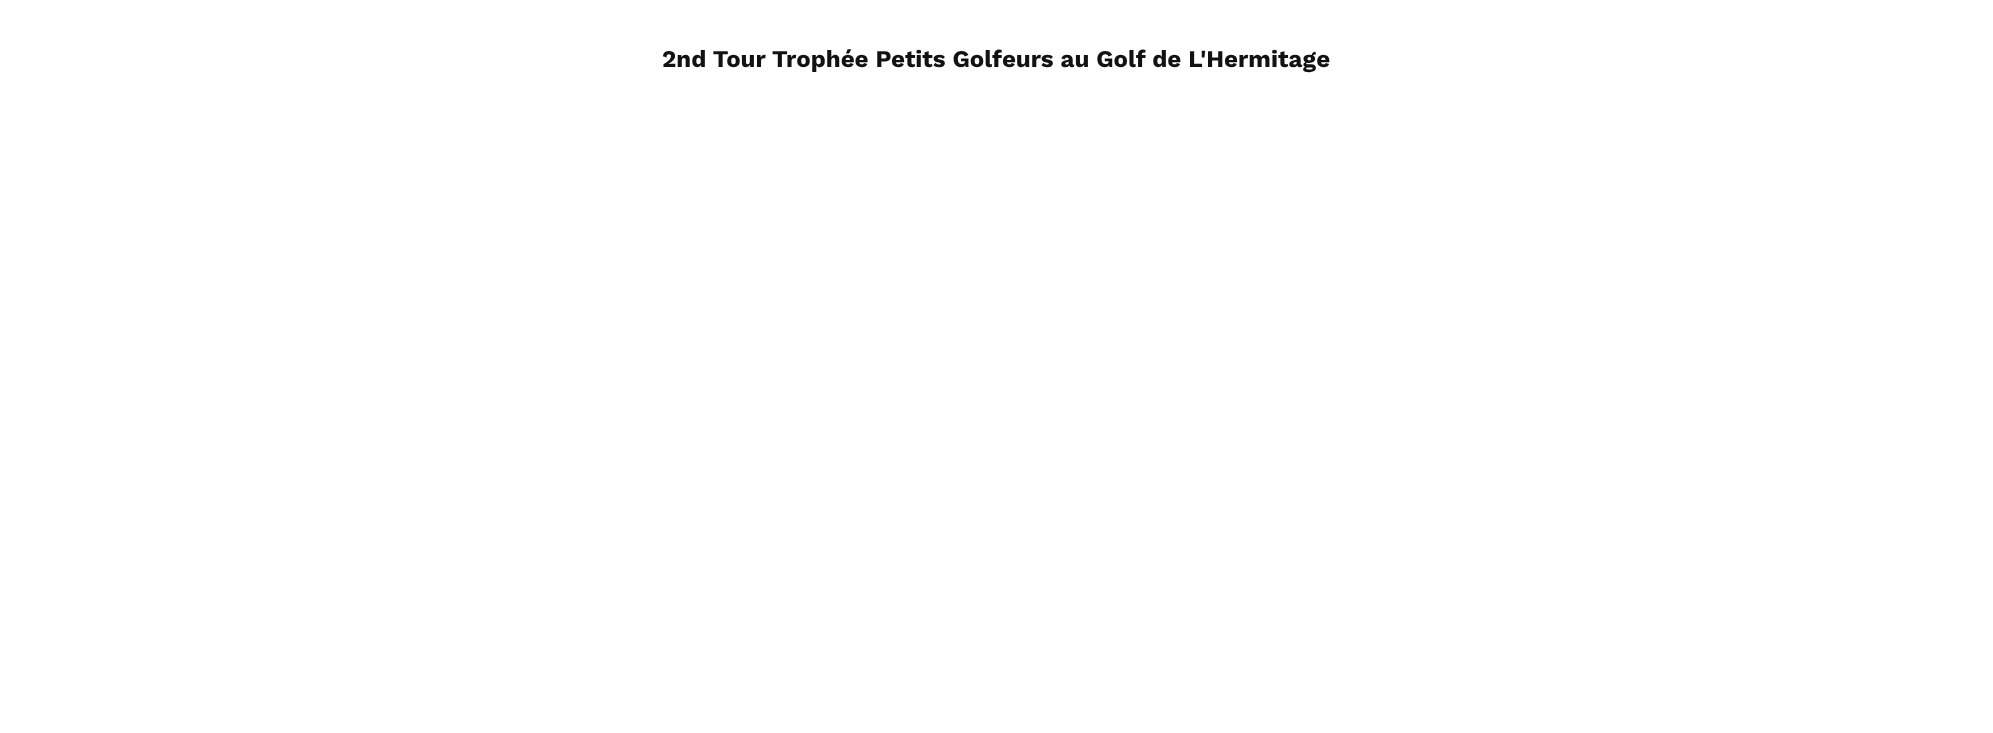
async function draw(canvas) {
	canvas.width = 1993;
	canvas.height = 733;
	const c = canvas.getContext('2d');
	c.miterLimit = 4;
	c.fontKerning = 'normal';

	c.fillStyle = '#fff';
	c.fillRect(0, 0, 1993, 733);
	c.font = 'bold 24px Work Sans';
	c.fillStyle = '#121212';
	c.fillText('2nd Tour Trophée Petits Golfeurs au Golf de L\'Hermitage', 662, 67);
}

draw(document.querySelector('canvas'));
